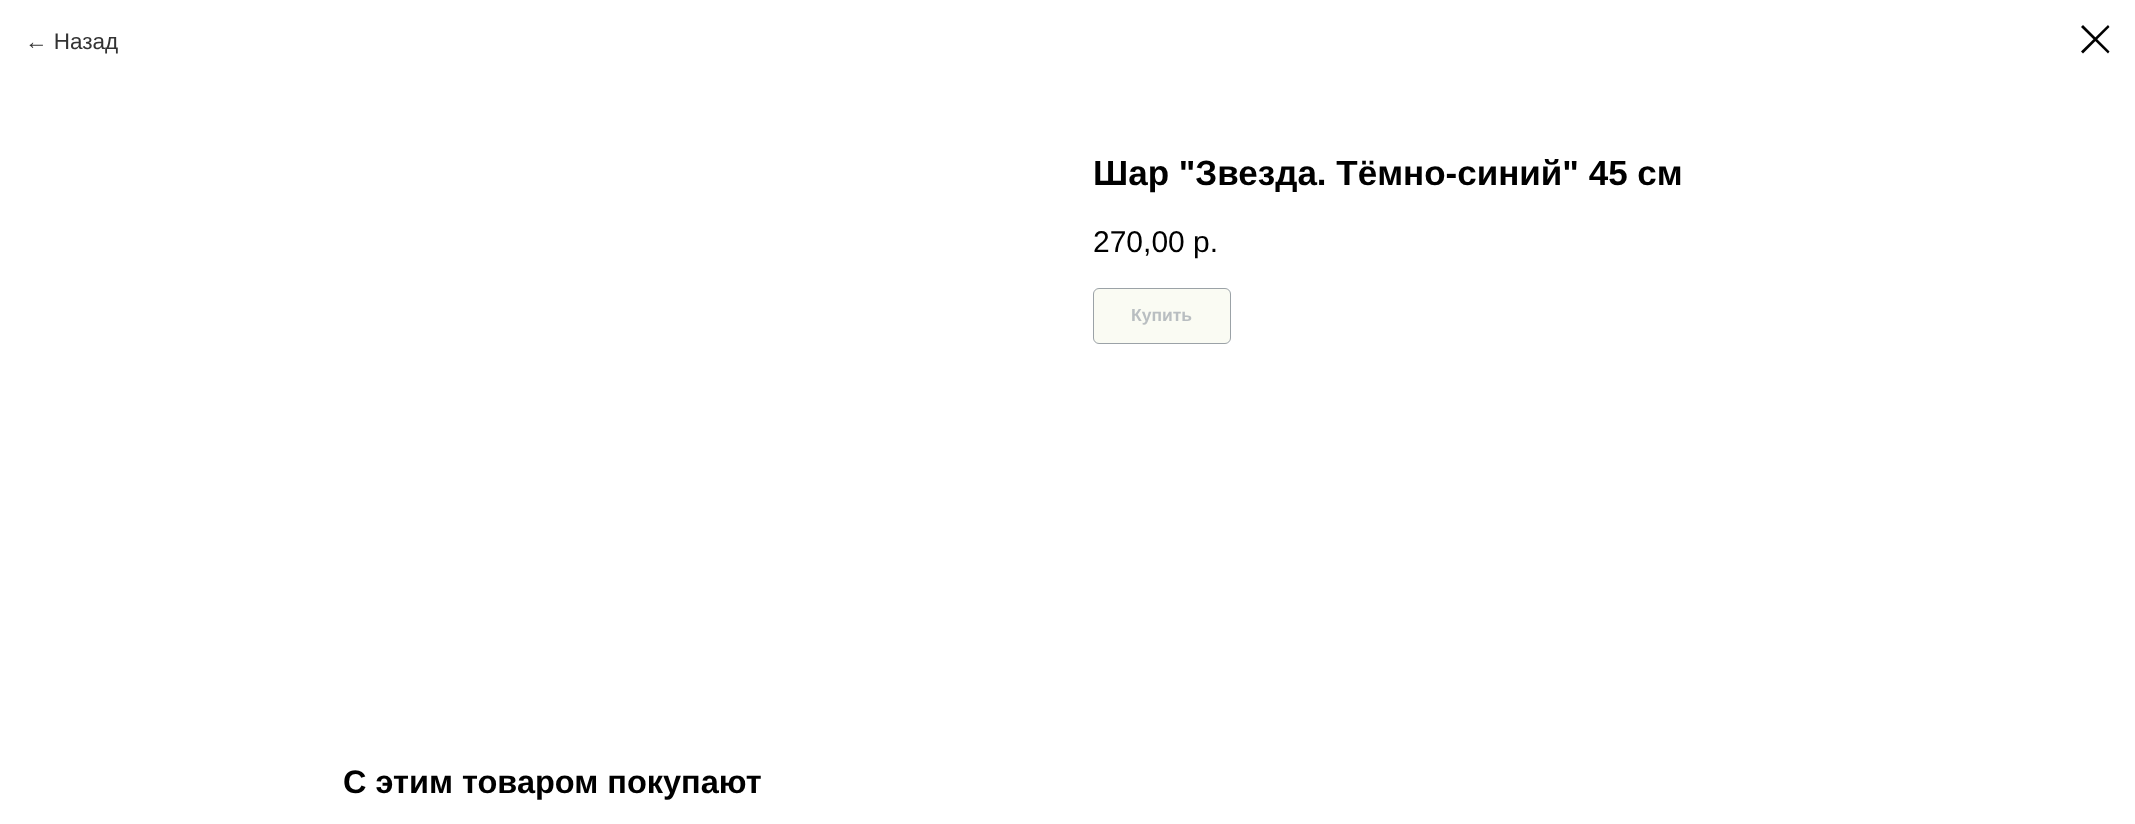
async function draw(canvas) {
	canvas.width = 2135;
	canvas.height = 824;
	const c = canvas.getContext('2d');
	c.miterLimit = 4;
	c.fontKerning = 'normal';

	c.fillStyle = '#fff';
	c.fillRect(0, 0, 2135, 824);
	c.font = '22.5px Liberation Sans';
	c.fillStyle = '#333';
	c.fillText('← Назад', 25, 49);
	c.fillStyle = '#000';
	c.beginPath();
	c.moveTo(2081, 27);
	c.lineTo(2083, 25);
	c.lineTo(2109.5, 51.5);
	c.lineTo(2108, 53.5);
	c.closePath();
	c.fill('evenodd');
	c.beginPath();
	c.moveTo(2108, 25);
	c.lineTo(2109.5, 27);
	c.lineTo(2083, 53.5);
	c.lineTo(2081, 51.5);
	c.closePath();
	c.fill('evenodd');
	c.font = 'bold 35px Liberation Sans';
	c.fillText('Шар "Звезда. Тёмно-синий" 45 см', 1093, 185);
	c.font = '30px Liberation Sans';
	c.fillText('270,00 р.', 1093, 252);
	c.fillStyle = '#fafbf3';
	c.beginPath();
	c.roundRect(1093.5, 288.5, 137, 55, 5.5);
	c.fill();
	c.strokeStyle = '#9ba2a7';
	c.stroke();
	c.font = 'bold 17.5px Liberation Sans';
	c.fillStyle = '#b9bec1';
	c.fillText('Купить', 1131, 321);
	c.font = 'bold 32.5px Liberation Sans';
	c.fillStyle = '#000';
	c.fillText('С этим товаром покупают', 343, 793);
}

draw(document.querySelector('canvas'));
